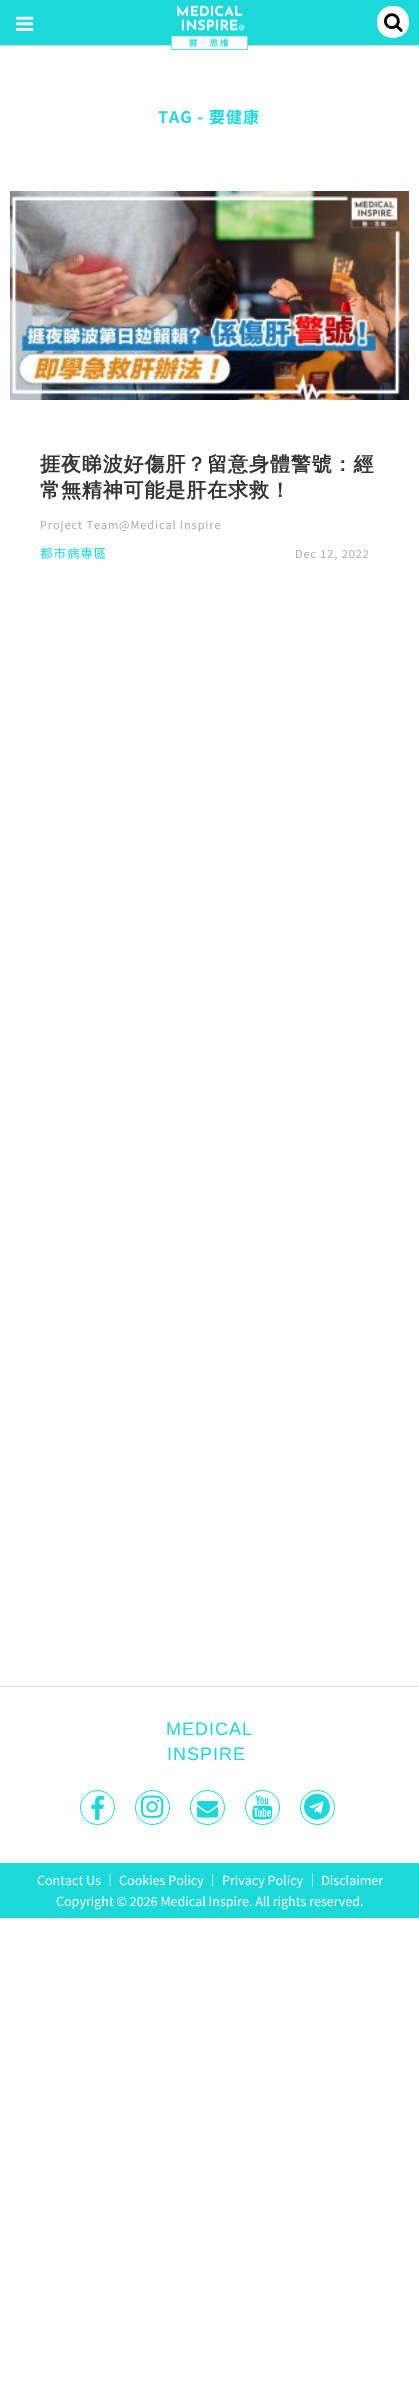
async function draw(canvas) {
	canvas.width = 419;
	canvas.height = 2382;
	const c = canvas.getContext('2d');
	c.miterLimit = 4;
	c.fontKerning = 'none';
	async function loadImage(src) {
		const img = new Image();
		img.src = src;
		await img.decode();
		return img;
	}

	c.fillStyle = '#fff';
	c.fillRect(0, 0, 419, 2382);
	c.fillStyle = '#d9d9d9';
	c.beginPath();
	c.moveTo(0, -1);
	c.lineTo(0, 0);
	c.lineTo(419, 0);
	c.lineTo(419, 45);
	c.lineTo(0, 45);
	c.lineTo(0, 46);
	c.lineTo(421, 46);
	c.lineTo(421, -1);
	c.closePath();
	c.fill();
	c.fillStyle = '#1cd8d8';
	c.fillRect(0, 0, 419, 45);
	c.drawImage(await loadImage('img1.png'), 16, 16, 18, 15);
	c.drawImage(await loadImage('img2.png'), 171, 5, 77, 45);
	c.fillStyle = '#fff';
	c.beginPath();
	c.roundRect(377, 6, 32, 32, 15);
	c.fill();
	c.drawImage(await loadImage('img3.png'), 384, 13, 19, 19);
	c.letterSpacing = '1px';
	c.font = 'bold 16px Noto Sans HK';
	c.fillStyle = '#1cd8d8';
	c.fillText('TAG - 要健康', 158, 123);
	c.drawImage(await loadImage('img4.png'), 10, 191, 399, 209);
	c.letterSpacing = '0.9px';
	c.font = 'bold 20px WenQuanYi Zen Hei';
	c.fillStyle = '#333';
	c.fillText('捱夜睇波好傷肝？留意身體警號：經', 40, 471);
	c.fillText('常無精神可能是肝在求救！', 40, 497);
	c.font = '11px Noto Sans HK';
	c.fillStyle = '#ababab';
	c.fillText('Project Team@Medical Inspire', 40, 529);
	c.font = '12.55px Noto Sans HK';
	c.fillStyle = '#1cd8d8';
	c.fillText('都市病專區', 40, 558);
	c.font = '11px Noto Sans HK';
	c.fillStyle = '#ababab';
	c.fillText('Dec 12, 2022', 295, 558);
	c.fillStyle = '#ddd';
	c.fillRect(0, 1686, 419, 1);
	c.letterSpacing = '1px';
	c.font = '18px Liberation Sans';
	c.fillStyle = '#1cd8d8';
	c.fillText('MEDICAL', 166, 1735);
	c.fillText('INSPIRE', 167, 1760);
	c.beginPath();
	c.arc(97.5, 1807.5, 17, 0, 2 * Math.PI);
	c.strokeStyle = '#1cd8d8';
	c.stroke();
	c.drawImage(await loadImage('img5.png'), 91, 1795, 13, 25);
	c.beginPath();
	c.arc(152.5, 1807.5, 17, 0, 2 * Math.PI);
	c.stroke();
	c.drawImage(await loadImage('img6.png'), 141, 1795, 23, 23);
	c.beginPath();
	c.arc(207.5, 1807.5, 17, 0, 2 * Math.PI);
	c.stroke();
	c.drawImage(await loadImage('img7.png'), 197, 1801, 21, 17);
	c.beginPath();
	c.arc(262.5, 1807.5, 17, 0, 2 * Math.PI);
	c.stroke();
	c.drawImage(await loadImage('img8.png'), 252, 1795, 21, 25);
	c.beginPath();
	c.arc(317.5, 1807.5, 17, 0, 2 * Math.PI);
	c.stroke();
	c.drawImage(await loadImage('img9.png'), 304, 1793, 26, 27);
	c.fillRect(0, 1863, 419, 55);
	c.letterSpacing = '0px';
	c.font = '12.55px Noto Sans HK';
	c.fillStyle = '#fff';
	c.fillText('Contact Us ｜ Cookies Policy ｜ Privacy Policy ｜ Disclaimer', 37, 1885);
	c.fillText('Copyright © 2026 Medical Inspire. All rights reserved.', 56, 1906);
}

draw(document.querySelector('canvas'));
